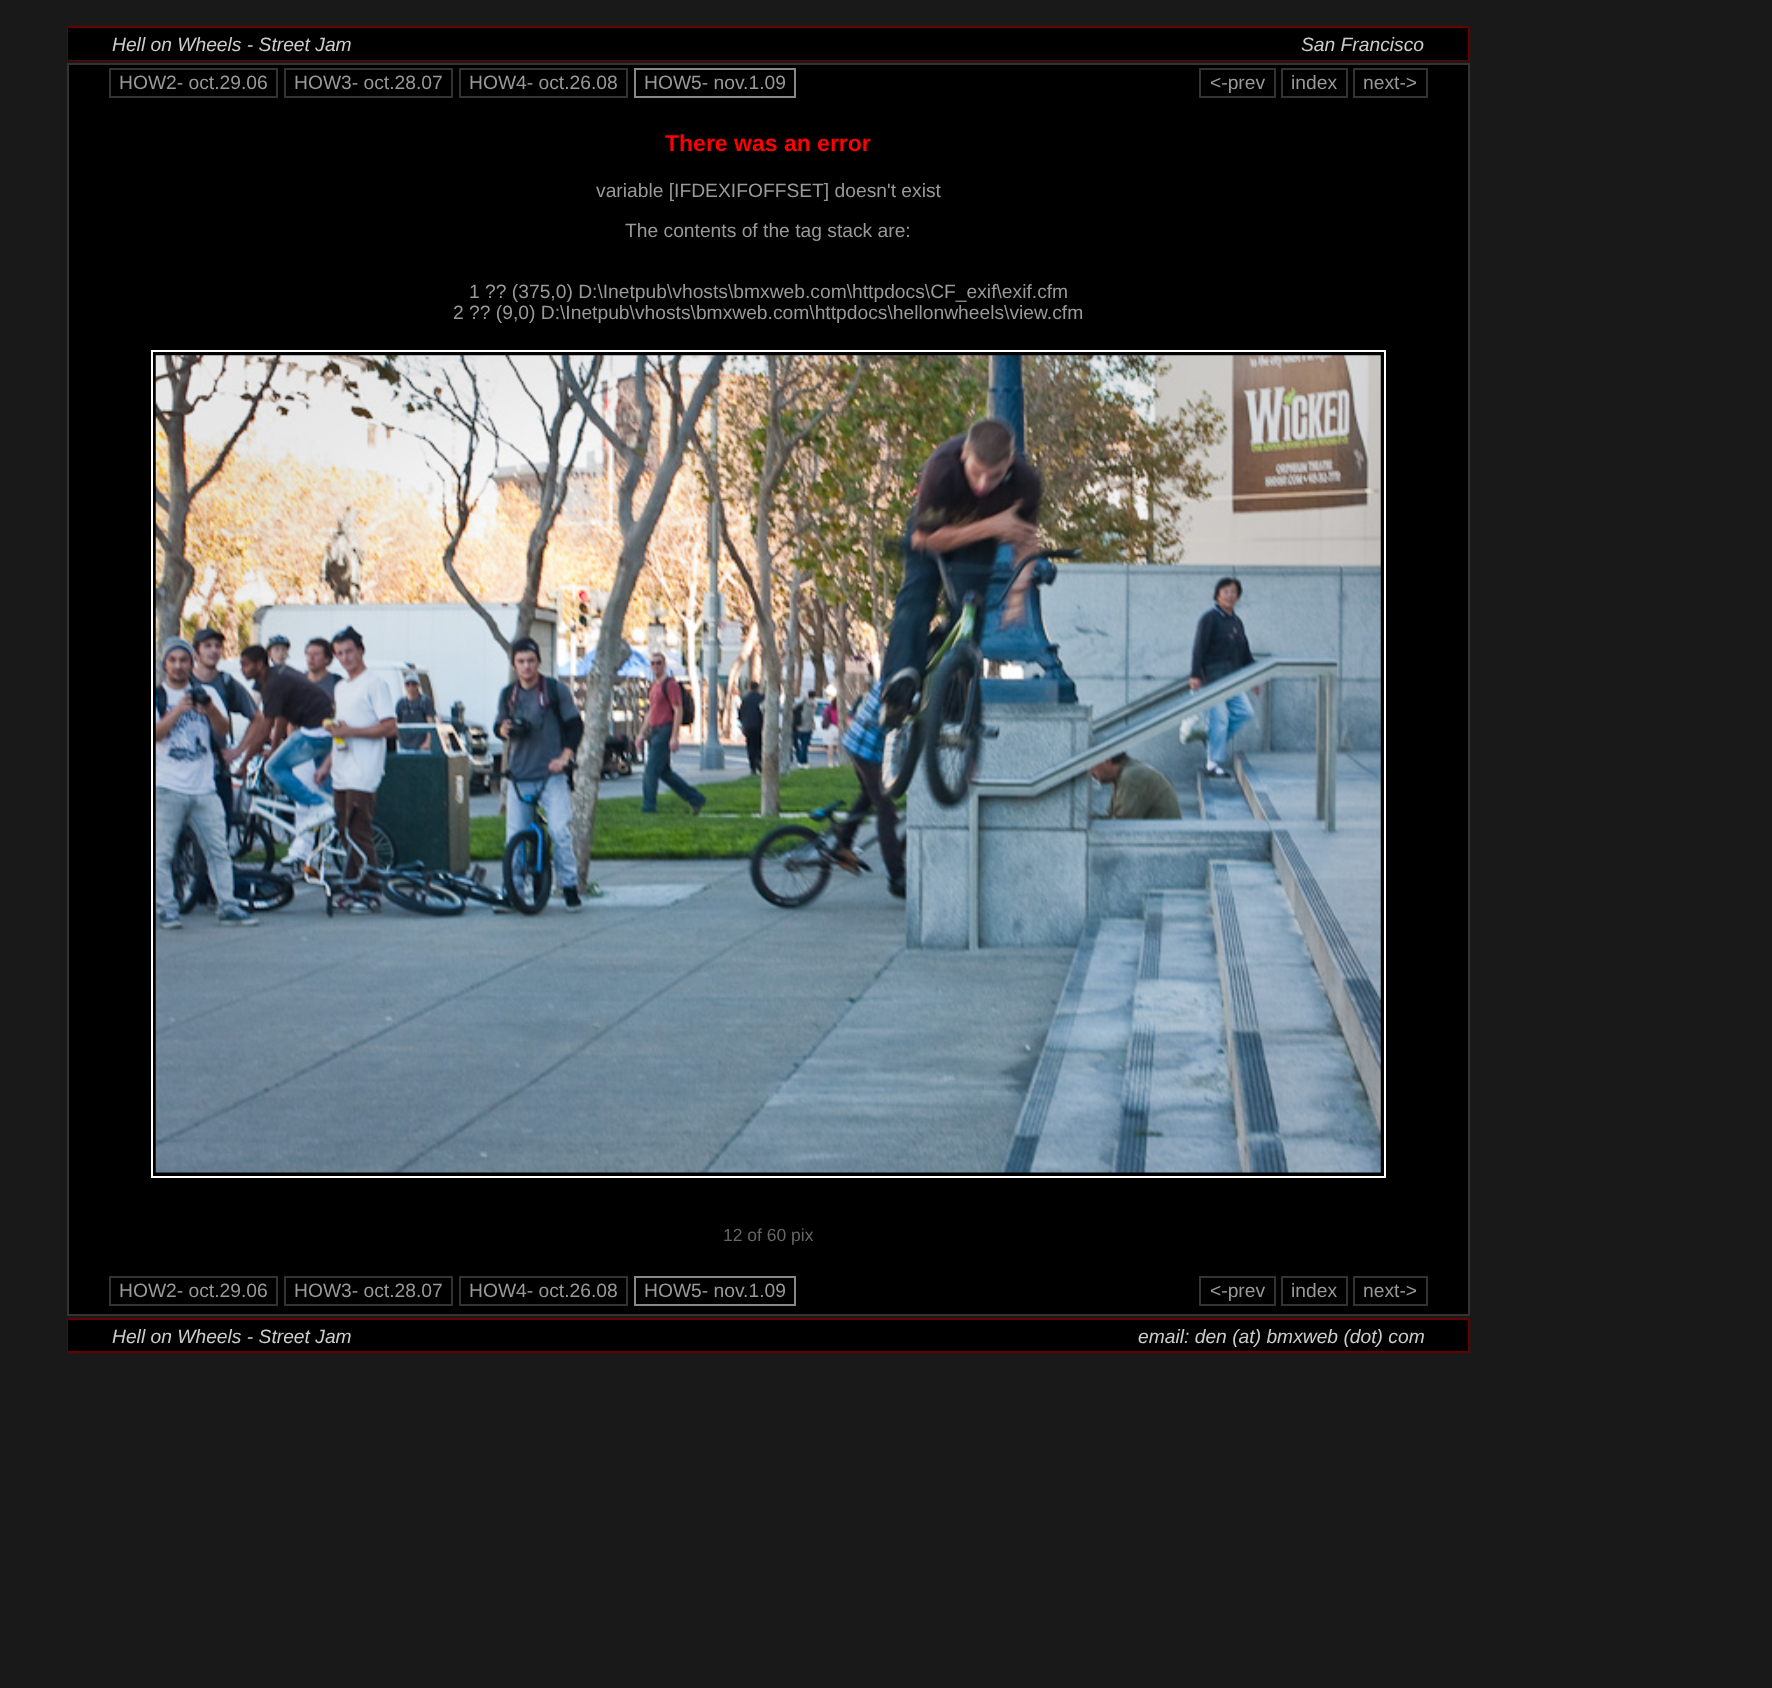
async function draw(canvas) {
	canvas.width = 1772;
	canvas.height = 1688;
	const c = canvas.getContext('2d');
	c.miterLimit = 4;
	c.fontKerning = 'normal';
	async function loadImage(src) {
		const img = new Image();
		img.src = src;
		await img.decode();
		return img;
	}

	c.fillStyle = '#191919';
	c.fillRect(0, 0, 1772, 1688);
	c.strokeStyle = '#600';
	c.lineWidth = 2;
	c.strokeRect(68, 27, 1401, 33);
	c.fillStyle = '#000';
	c.fillRect(68, 28, 1400, 32);
	c.font = 'italic 19.25px Liberation Sans';
	c.fillStyle = '#ccc';
	c.fillText('Hell on Wheels - Street Jam', 112, 51);
	c.fillText('San Francisco', 1301, 51);
	c.fillStyle = '#000';
	c.beginPath();
	c.rect(68, 64, 1401, 1251);
	c.fill();
	c.strokeStyle = '#333';
	c.stroke();
	c.strokeRect(110, 69, 167, 28);
	c.font = '19.25px Liberation Sans';
	c.fillStyle = '#999';
	c.fillText('HOW2- oct.29.06', 119, 89);
	c.strokeRect(285, 69, 167, 28);
	c.fillText('HOW3- oct.28.07', 294, 89);
	c.strokeRect(460, 69, 167, 28);
	c.fillText('HOW4- oct.26.08', 469, 89);
	c.strokeStyle = '#888';
	c.strokeRect(635, 69, 160, 28);
	c.fillText('HOW5- nov.1.09', 644, 89);
	c.strokeStyle = '#333';
	c.strokeRect(1200, 69, 75, 28);
	c.fillText('<-prev', 1210, 89);
	c.strokeRect(1282, 69, 65, 28);
	c.fillText('index', 1291, 89);
	c.strokeRect(1354, 69, 73, 28);
	c.fillText('next->', 1363, 89);
	c.font = 'bold 23px Liberation Sans';
	c.fillStyle = '#f00';
	c.fillText('There was an error', 665, 151);
	c.font = '19.25px Liberation Sans';
	c.fillStyle = '#999';
	for (const [text, x, y] of [
		['variable [IFDEXIFOFFSET] doesn\'t exist', 596, 197],
		['The contents of the tag stack are:', 625, 237],
		['1 ?? (375,0) D:\\Inetpub\\vhosts\\bmxweb.com\\httpdocs\\CF_exif\\exif.cfm', 469, 298],
		['2 ?? (9,0) D:\\Inetpub\\vhosts\\bmxweb.com\\httpdocs\\hellonwheels\\view.cfm', 453, 319],
	]) {
		c.fillText(text, x, y);
	}
	c.strokeStyle = '#fff';
	c.strokeRect(152, 351, 1233, 826);
	c.drawImage(await loadImage('img1.png'), 155, 355, 1226, 818);
	c.font = '17.5px Liberation Sans';
	c.fillStyle = '#666';
	c.fillText('12 of 60 pix', 723, 1241);
	c.strokeStyle = '#333';
	c.strokeRect(110, 1277, 167, 28);
	c.font = '19.25px Liberation Sans';
	c.fillStyle = '#999';
	c.fillText('HOW2- oct.29.06', 119, 1297);
	c.strokeRect(285, 1277, 167, 28);
	c.fillText('HOW3- oct.28.07', 294, 1297);
	c.strokeRect(460, 1277, 167, 28);
	c.fillText('HOW4- oct.26.08', 469, 1297);
	c.strokeStyle = '#888';
	c.strokeRect(635, 1277, 160, 28);
	c.fillText('HOW5- nov.1.09', 644, 1297);
	c.strokeStyle = '#333';
	c.strokeRect(1200, 1277, 75, 28);
	c.fillText('<-prev', 1210, 1297);
	c.strokeRect(1282, 1277, 65, 28);
	c.fillText('index', 1291, 1297);
	c.strokeRect(1354, 1277, 73, 28);
	c.fillText('next->', 1363, 1297);
	c.fillStyle = '#000';
	c.fillRect(716, 1320, 752, 31);
	c.strokeStyle = '#600';
	c.strokeRect(68, 1319, 1401, 33);
	c.fillRect(68, 1320, 648, 31);
	c.font = 'italic 19.25px Liberation Sans';
	c.fillStyle = '#ccc';
	c.fillText('Hell on Wheels - Street Jam', 112, 1343);
	c.fillText('email: den (at) bmxweb (dot) com', 1138, 1343);
}

draw(document.querySelector('canvas'));
